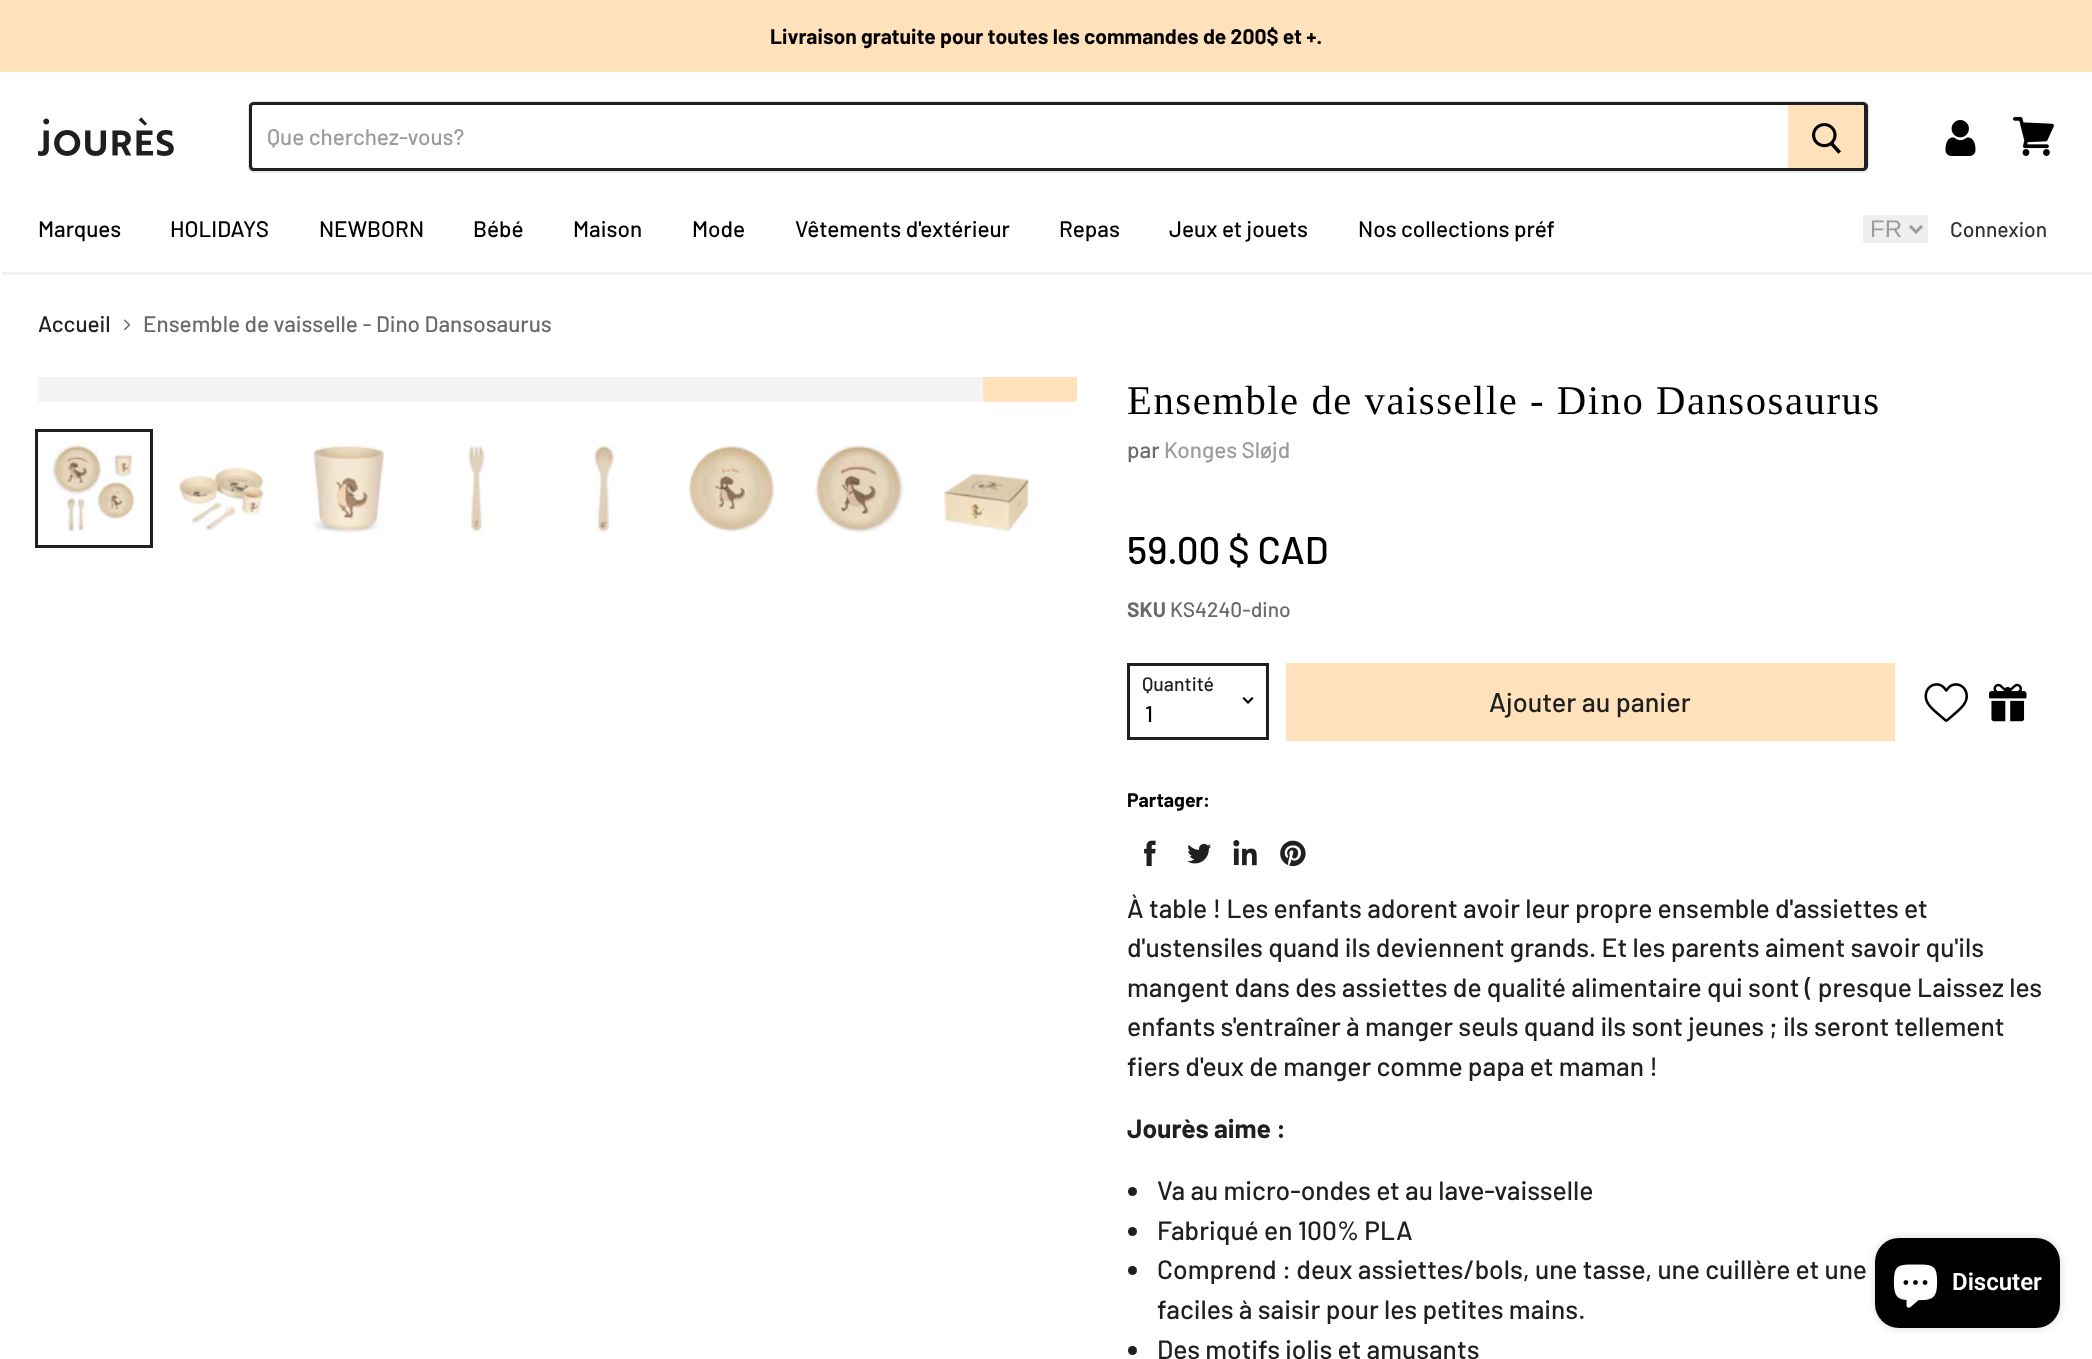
async function draw(canvas) {
	canvas.width = 2092;
	canvas.height = 1359;
	const c = canvas.getContext('2d');
	c.miterLimit = 4;
	c.fontKerning = 'normal';
	async function loadImage(src) {
		const img = new Image();
		img.src = src;
		await img.decode();
		return img;
	}

	c.fillStyle = '#fff';
	c.fillRect(0, 0, 2092, 1359);
	c.fillStyle = '#ffe1bb';
	c.fillRect(0, 0, 2092, 72);
	c.font = 'bold 21.1px Barlow';
	c.fillStyle = '#000';
	c.fillText('Livraison gratuite pour toutes les commandes de 200$ et +.', 770, 44);
	c.fillStyle = '#f2f2f2';
	c.beginPath();
	c.moveTo(2, 272);
	c.lineTo(2, 275);
	c.lineTo(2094, 275);
	c.lineTo(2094, 75);
	c.lineTo(2092, 75);
	c.lineTo(2092, 272);
	c.closePath();
	c.fill();
	c.drawImage(await loadImage('img1.png'), 38, 117, 136, 39);
	c.beginPath();
	c.roundRect(249, 102, 1619, 70, 5);
	c.strokeStyle = '#e5e5e5';
	c.lineWidth = 2;
	c.stroke();
	c.fillStyle = '#fff';
	c.beginPath();
	c.roundRect(249, 102, 1539, 69, [5, 0, 0, 5]);
	c.fill();
	c.fillStyle = '#1f1f1f';
	c.beginPath();
	c.moveTo(254, 102);
	c.lineTo(1788, 102);
	c.lineTo(1788, 171);
	c.lineTo(254, 171);
	c.bezierCurveTo(251, 171, 249, 169, 249, 166);
	c.lineTo(249, 106);
	c.bezierCurveTo(249, 104, 251, 102, 254, 102);
	c.closePath();
	c.moveTo(254, 105);
	c.lineTo(1788, 105);
	c.lineTo(1788, 168);
	c.lineTo(254, 168);
	c.bezierCurveTo(253, 168, 252, 167, 252, 166);
	c.lineTo(252, 106);
	c.bezierCurveTo(252, 106, 253, 105, 254, 105);
	c.closePath();
	c.fill('evenodd');
	c.font = '500 22.5px Barlow';
	c.fillStyle = '#9c9c9c';
	c.fillText('Que cherchez-vous?', 267, 145);
	c.fillStyle = '#ffe1bb';
	c.beginPath();
	c.roundRect(1788, 102, 80, 69, [0, 5, 5, 0]);
	c.fill();
	c.fillStyle = '#1f1f1f';
	c.beginPath();
	c.moveTo(1788, 102);
	c.lineTo(1863, 102);
	c.bezierCurveTo(1865, 102, 1868, 104, 1868, 106);
	c.lineTo(1868, 166);
	c.bezierCurveTo(1868, 169, 1865, 171, 1863, 171);
	c.lineTo(1788, 171);
	c.closePath();
	c.moveTo(1788, 105);
	c.lineTo(1863, 105);
	c.bezierCurveTo(1864, 105, 1864, 106, 1864, 106);
	c.lineTo(1864, 166);
	c.bezierCurveTo(1864, 167, 1864, 168, 1863, 168);
	c.lineTo(1788, 168);
	c.closePath();
	c.fill('evenodd');
	c.drawImage(await loadImage('img2.png'), 1812, 123, 29, 31);
	c.drawImage(await loadImage('img3.png'), 1945, 120, 31, 36);
	c.drawImage(await loadImage('img4.png'), 2013, 117, 41, 39);
	c.fillStyle = '#000';
	for (const [text, x, y] of [
		['Marques', 38, 237],
		['HOLIDAYS', 170, 237],
		['NEWBORN', 319, 237],
		['Bébé', 473, 237],
		['Maison', 573, 237],
		['Mode', 692, 237],
		['Vêtements d\'extérieur', 795, 237],
		['Repas', 1059, 237],
		['Jeux et jouets', 1169, 237],
		['Nos collections préf', 1358, 237],
	]) {
		c.fillText(text, x, y);
	}
	c.fillStyle = '#efefef';
	c.fillRect(1863, 215, 65, 28);
	c.beginPath();
	c.moveTo(1910, 226);
	c.lineTo(1916, 232);
	c.lineTo(1922, 226);
	c.strokeStyle = '#9b9b9b';
	c.lineWidth = 3;
	c.stroke();
	c.font = '24px Liberation Sans';
	c.fillStyle = '#9c9c9c';
	c.fillText('FR', 1870, 237);
	c.font = '500 21.1px Barlow';
	c.fillStyle = '#333';
	c.fillText('Connexion', 1950, 237);
	c.font = '500 22.5px Barlow';
	c.fillStyle = '#202020';
	c.fillText('Accueil', 38, 332);
	c.drawImage(await loadImage('img5.png'), 123, 319, 8, 12);
	c.fillStyle = '#6d6a6a';
	c.fillText('Ensemble de vaisselle - Dino Dansosaurus', 143, 332);
	c.fillStyle = '#f4f4f4';
	c.fillRect(38, 377, 1039, 25);
	c.fillStyle = '#ffe1bb';
	c.beginPath();
	c.roundRect(983, 377, 94, 25, [0, 0, 5, 5]);
	c.fill();
	c.strokeStyle = '#1f1f1f';
	c.strokeRect(36.5, 430.5, 115, 116);
	c.drawImage(await loadImage('img6.png'), 51, 444, 84, 93);
	c.drawImage(await loadImage('img7.png'), 178, 466, 87, 65);
	c.drawImage(await loadImage('img8.png'), 313, 445, 73, 92);
	c.drawImage(await loadImage('img9.png'), 468, 446, 18, 91);
	c.drawImage(await loadImage('img10.png'), 594, 445, 21, 87);
	c.drawImage(await loadImage('img11.png'), 688, 445, 87, 87);
	c.drawImage(await loadImage('img12.png'), 815, 444, 89, 89);
	c.drawImage(await loadImage('img13.png'), 943, 473, 92, 59);
	c.letterSpacing = '1.5px';
	c.font = '40.75px Liberation Serif';
	c.fillStyle = '#000';
	c.fillText('Ensemble de vaisselle - Dino Dansosaurus', 1127, 414);
	c.letterSpacing = '0px';
	c.font = '500 22.5px Barlow';
	c.fillStyle = '#6d6a6a';
	c.fillText('par', 1127, 458);
	c.fillStyle = '#9c9c9c';
	c.fillText('Konges Sløjd', 1164, 458);
	c.font = '500 38.5px Barlow';
	c.fillStyle = '#000';
	c.fillText('59.00 $ CAD', 1127, 564);
	c.font = 'bold 21px Barlow';
	c.fillStyle = '#6d6a6a';
	c.fillText('SKU', 1127, 617);
	c.font = '500 21px Barlow';
	c.fillText('KS4240-dino', 1170, 617);
	c.strokeRect(1128.5, 664.5, 139, 74);
	c.font = '500 19.5px Barlow';
	c.fillStyle = '#202020';
	c.fillText('Quantité', 1142, 691);
	c.drawImage(await loadImage('img14.png'), 1242, 697, 12, 7);
	c.font = '500 22.5px Barlow';
	c.fillStyle = '#000';
	c.fillText('1', 1145, 722);
	c.fillStyle = '#ffe1bb';
	c.fillRect(1286, 663, 609, 78);
	c.font = '500 27px Barlow';
	c.fillStyle = '#202020';
	c.fillText('Ajouter au panier', 1489, 712);
	c.drawImage(await loadImage('img15.png'), 1924, 683, 44, 39);
	c.drawImage(await loadImage('img16.png'), 1989, 683, 38, 39);
	c.font = 'bold 19.5px Barlow';
	c.fillStyle = '#000';
	c.fillText('Partager:', 1127, 807);
	c.drawImage(await loadImage('img17.png'), 1144, 840, 12, 27);
	c.drawImage(await loadImage('img18.png'), 1187, 843, 25, 21);
	c.drawImage(await loadImage('img19.png'), 1233, 840, 24, 26);
	c.drawImage(await loadImage('img20.png'), 1280, 840, 26, 27);
	c.font = '500 26.4px Barlow';
	c.fillStyle = '#202020';
	for (const [text, x, y] of [
		['À table ! Les enfants adorent avoir leur propre ensemble d\'assiettes et', 1127, 918],
		['d\'ustensiles quand ils deviennent grands. Et les parents aiment savoir qu\'ils', 1127, 957],
		['mangent dans des assiettes de qualité alimentaire qui sont ( presque Laissez les', 1127, 997],
		['enfants s\'entraîner à manger seuls quand ils sont jeunes ; ils seront tellement', 1127, 1036],
		['fiers d\'eux de manger comme papa et maman !', 1127, 1076],
	]) {
		c.fillText(text, x, y);
	}
	c.font = 'bold 26.4px Barlow';
	c.fillText('Jourès aime :', 1127, 1138);
	c.fillStyle = '#1f1f1f';
	c.beginPath();
	c.arc(1132.5, 1191.5, 4.5, 0, 2 * Math.PI);
	c.fill();
	c.font = '500 26.4px Barlow';
	c.fillStyle = '#202020';
	c.fillText('Va au micro-ondes et au lave-vaisselle', 1157, 1200);
	c.fillStyle = '#1f1f1f';
	c.beginPath();
	c.arc(1132.5, 1231.5, 4.5, 0, 2 * Math.PI);
	c.fill();
	c.fillStyle = '#202020';
	c.fillText('Fabriqué en 100% PLA', 1157, 1240);
	c.fillStyle = '#1f1f1f';
	c.beginPath();
	c.arc(1132.5, 1270.5, 4.5, 0, 2 * Math.PI);
	c.fill();
	c.fillStyle = '#202020';
	c.fillText('Comprend : deux assiettes/bols, une tasse, une cuillère et une', 1157, 1279);
	c.fillText('faciles à saisir pour les petites mains.', 1157, 1319);
	c.fillStyle = '#1f1f1f';
	c.beginPath();
	c.arc(1132.5, 1350.5, 4.5, 0, 2 * Math.PI);
	c.fill();
	c.fillStyle = '#202020';
	c.fillText('Des motifs jolis et amusants', 1157, 1359);
	c.fillStyle = '#00000026';
	c.filter = 'blur(4px)';
	c.beginPath();
	c.roundRect(1875, 1238, 185, 90, 24);
	c.fill();
	c.filter = 'none';
	c.fillStyle = '#000';
	c.beginPath();
	c.roundRect(1875, 1238, 185, 90, 24);
	c.fill();
	c.drawImage(await loadImage('img21.png'), 1893, 1264, 45, 44);
	c.font = '600 24px Roboto';
	c.fillStyle = '#fff';
	c.fillText('Discuter', 1952, 1290);
}

draw(document.querySelector('canvas'));
